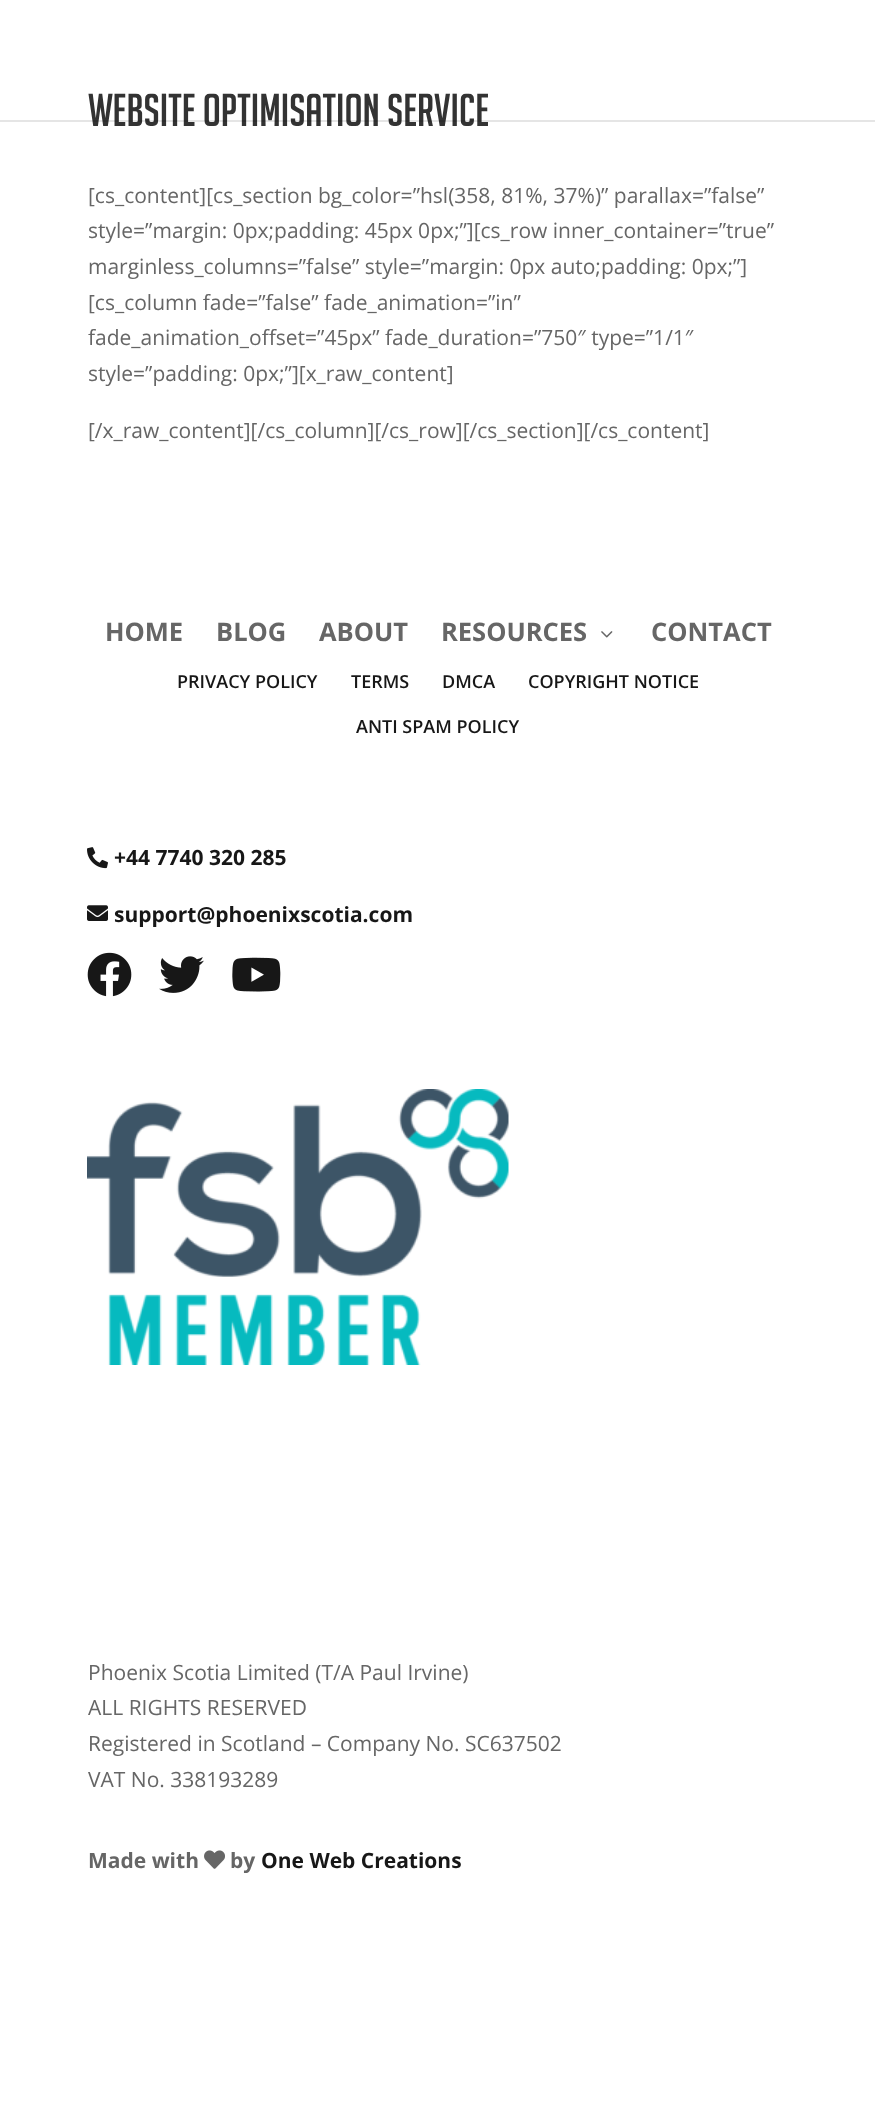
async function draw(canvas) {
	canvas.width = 875;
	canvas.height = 2125;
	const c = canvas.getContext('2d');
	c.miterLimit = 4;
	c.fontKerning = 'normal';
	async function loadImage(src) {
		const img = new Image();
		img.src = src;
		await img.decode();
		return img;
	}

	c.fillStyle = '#fff';
	c.fillRect(0, 0, 875, 2125);
	c.font = '45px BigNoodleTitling';
	c.fillStyle = '#333';
	c.fillText('Website Optimisation Service', 88, 126);
	c.font = '21px Open Sans';
	c.fillStyle = '#666';
	for (const [text, x, y] of [
		['[cs_content][cs_section bg_color=”hsl(358, 81%, 37%)” parallax=”false”', 88, 203],
		['style=”margin: 0px;padding: 45px 0px;”][cs_row inner_container=”true”', 88, 238],
		['marginless_columns=”false” style=”margin: 0px auto;padding: 0px;”]', 88, 274],
		['[cs_column fade=”false” fade_animation=”in”', 88, 310],
		['fade_animation_offset=”45px” fade_duration=”750″ type=”1/1″', 88, 345],
		['style=”padding: 0px;”][x_raw_content]', 88, 381],
		['[/x_raw_content][/cs_column][/cs_row][/cs_section][/cs_content]', 88, 438],
	]) {
		c.fillText(text, x, y);
	}
	c.font = 'bold 25.5px Open Sans';
	for (const [text, x, y] of [
		['HOME', 105, 641],
		['BLOG', 216, 641],
		['ABOUT', 319, 641],
		['RESOURCES', 441, 641],
	]) {
		c.fillText(text, x, y);
	}
	c.drawImage(await loadImage('img1.png'), 601, 631, 12, 7);
	c.fillText('CONTACT', 651, 641);
	c.font = '600 18px Open Sans';
	c.fillStyle = '#171717';
	for (const [text, x, y] of [
		['PRIVACY POLICY', 177, 688],
		['TERMS', 351, 688],
		['DMCA', 442, 688],
		['COPYRIGHT NOTICE', 528, 688],
		['ANTI SPAM POLICY', 356, 733],
	]) {
		c.fillText(text, x, y);
	}
	c.drawImage(await loadImage('img2.png'), 87, 847, 21, 22);
	c.font = 'bold 21px Open Sans';
	c.fillText('+44 7740 320 285', 114, 865);
	c.drawImage(await loadImage('img3.png'), 87, 905, 21, 16);
	c.fillText('support@phoenixscotia.com', 114, 922);
	c.drawImage(await loadImage('img4.png'), 87, 952, 45, 45);
	c.drawImage(await loadImage('img5.png'), 159, 956, 45, 37);
	c.drawImage(await loadImage('img6.png'), 232, 957, 49, 35);
	c.drawImage(await loadImage('img7.png'), 87, 1089, 422, 276);
	c.font = '21px Open Sans';
	c.fillStyle = '#666';
	for (const [text, x, y] of [
		['Phoenix Scotia Limited (T/A Paul Irvine)', 88, 1680],
		['ALL RIGHTS RESERVED', 88, 1715],
		['Registered in Scotland – Company No. SC637502', 88, 1751],
		['VAT No. 338193289', 88, 1787],
	]) {
		c.fillText(text, x, y);
	}
	c.font = 'bold 21px Open Sans';
	c.fillText('Made with', 88, 1868);
	c.drawImage(await loadImage('img8.png'), 204, 1850, 21, 19);
	c.fillText('by', 230, 1868);
	c.fillStyle = '#171717';
	c.fillText('One Web Creations', 261, 1868);
	c.fillStyle = '#0000001a';
	c.fillRect(0, 120, 875, 2);
}

draw(document.querySelector('canvas'));
